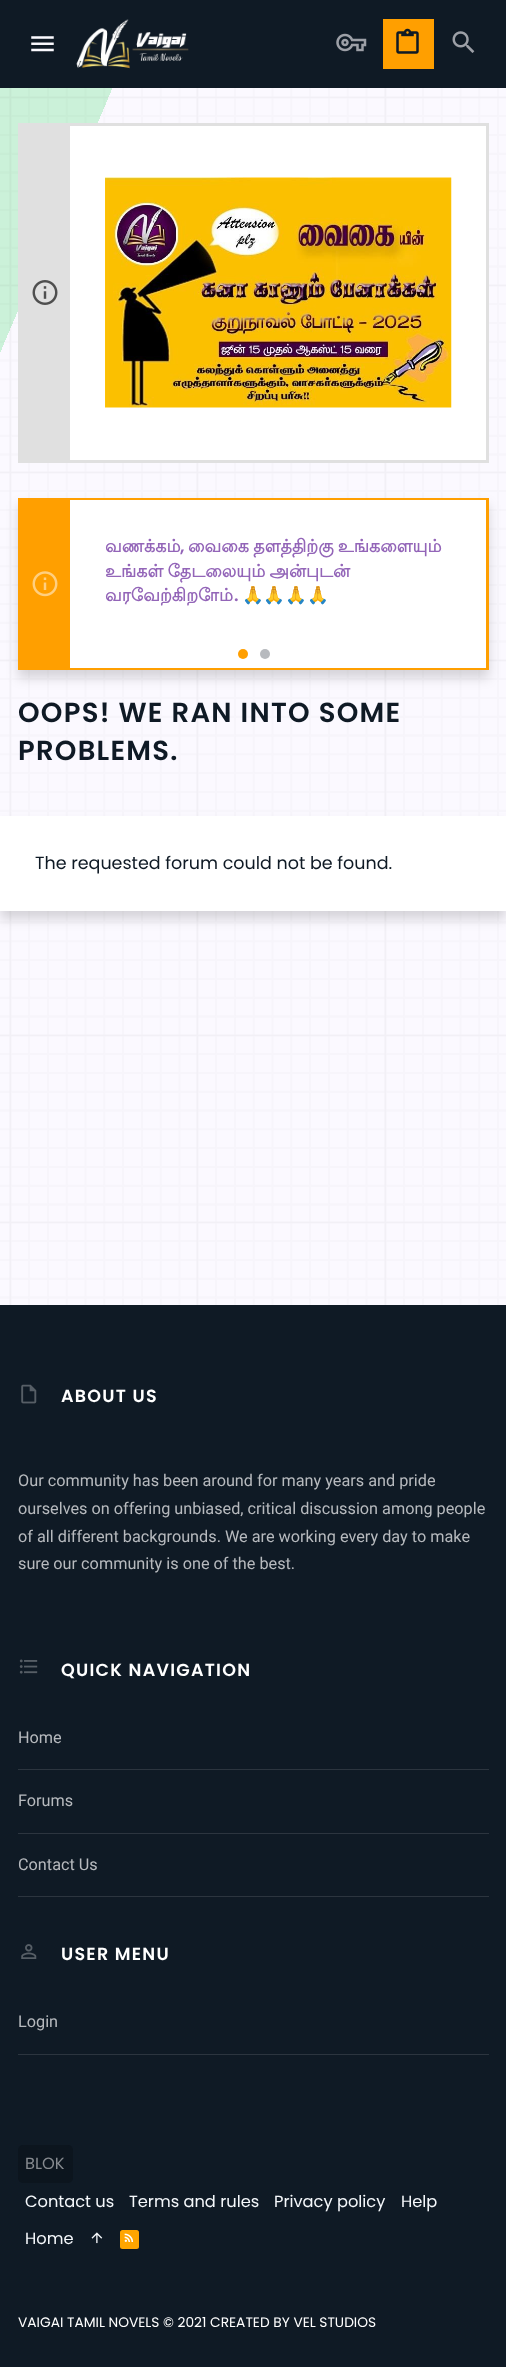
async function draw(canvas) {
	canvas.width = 506;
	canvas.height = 2367;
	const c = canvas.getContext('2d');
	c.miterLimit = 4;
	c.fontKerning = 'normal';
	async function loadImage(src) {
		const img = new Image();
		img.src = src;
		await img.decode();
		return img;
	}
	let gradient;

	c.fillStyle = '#0f1a25';
	c.fillRect(0, 0, 506, 2367);
	c.drawImage(await loadImage('img1.png'), 31, 36, 23, 16);
	c.drawImage(await loadImage('img2.png'), 76, 19, 113, 50);
	c.drawImage(await loadImage('img3.png'), 336, 33, 31, 19);
	c.fillStyle = '#ff9f00';
	c.fillRect(383, 19, 51, 50);
	c.drawImage(await loadImage('img4.png'), 396, 28, 23, 26);
	c.drawImage(await loadImage('img5.png'), 452, 31, 23, 22);
	gradient = c.createLinearGradient(-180, 512, 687, 880);
	gradient.addColorStop(0, '#cbf1d9');
	gradient.addColorStop(0.11, '#cbf1d9');
	gradient.addColorStop(0.11, '#fbf9ff');
	c.fillStyle = gradient;
	c.fillRect(0, 88, 506, 1217);
	c.drawImage(await loadImage('img6.png'), 0, 88, 506, 1217);
	c.fillStyle = '#fff';
	c.fillRect(70, 126, 416, 334);
	c.strokeStyle = '#e0e0e0';
	c.lineWidth = 3;
	c.strokeRect(19.5, 124.5, 468, 337);
	c.fillStyle = '#e0e0e0';
	c.fillRect(21, 126, 49, 334);
	c.drawImage(await loadImage('img7.png'), 32, 280, 26, 25);
	c.drawImage(await loadImage('img8.png'), 105, 177, 347, 231);
	c.fillStyle = '#00000026';
	c.filter = 'blur(6px)';
	c.beginPath();
	c.rect(18, 505, 471, 173);
	c.fill();
	c.filter = 'none';
	c.strokeStyle = '#ff9f00';
	c.strokeRect(19.5, 499.5, 468, 169);
	c.fillStyle = '#fff';
	c.fillRect(70, 500, 416, 168);
	c.fillStyle = '#ff9f00';
	c.fillRect(21, 501, 49, 166);
	c.drawImage(await loadImage('img9.png'), 32, 571, 26, 26);
	c.font = 'bold 17.5px Lohit Tamil';
	c.fillStyle = '#9365b8';
	c.fillText('வணக்கம்', 105, 552);
	c.font = '600 17.5px Poppins';
	c.fillText(',', 180, 552);
	c.wordSpacing = '-1px';
	c.font = 'bold 17.5px Lohit Tamil';
	c.fillText('வைகை தளத்திற்கு உங்களையும்', 188, 552);
	c.fillText('உங்கள் தேடலையும் அன்புடன்', 105, 577);
	c.wordSpacing = '0px';
	c.fillText('வரவேற்கிறோம்', 105, 601);
	c.font = '600 17.5px Poppins';
	c.fillText('.', 234, 601);
	c.font = 'bold 17.5px Noto Color Emoji';
	c.fillText('🙏🙏🙏🙏', 242, 601);
	c.fillStyle = '#ff9f00';
	c.beginPath();
	c.arc(243, 654, 5, 0, 2 * Math.PI);
	c.fill();
	c.fillStyle = '#b7babe';
	c.beginPath();
	c.arc(265, 654, 5, 0, 2 * Math.PI);
	c.fill();
	c.letterSpacing = '1.25px';
	c.font = '600 27.5px Poppins';
	c.fillStyle = '#0f1a25';
	c.fillText('OOPS! WE RAN INTO SOME', 18, 722);
	c.fillText('PROBLEMS.', 18, 760);
	c.fillStyle = '#00000026';
	c.filter = 'blur(6px)';
	c.beginPath();
	c.rect(0, 824, 506, 95);
	c.fill();
	c.filter = 'none';
	c.fillStyle = '#fff';
	c.fillRect(0, 816, 506, 95);
	c.letterSpacing = '0px';
	c.font = '17.5px Poppins';
	c.fillStyle = '#0f1a25';
	c.fillText('The requested forum could not be found.', 35, 869);
	c.drawImage(await loadImage('img10.png'), 21, 1384, 16, 20);
	c.letterSpacing = '1.25px';
	c.font = '600 17.5px Poppins';
	c.fillStyle = '#fff';
	c.fillText('ABOUT US', 61, 1402);
	c.letterSpacing = '0px';
	c.font = '16.25px Roboto';
	c.fillStyle = '#b7babe';
	for (const [text, x, y] of [
		['Our community has been around for many years and pride', 18, 1486],
		['ourselves on offering unbiased, critical discussion among people', 18, 1514],
		['of all different backgrounds. We are working every day to make', 18, 1542],
		['sure our community is one of the best.', 18, 1569],
	]) {
		c.fillText(text, x, y);
	}
	c.drawImage(await loadImage('img11.png'), 19, 1659, 19, 15);
	c.letterSpacing = '1.25px';
	c.font = '600 17.5px Poppins';
	c.fillStyle = '#fff';
	c.fillText('QUICK NAVIGATION', 61, 1676);
	c.fillStyle = '#2c353f';
	c.fillRect(18, 1769, 471, 1);
	c.letterSpacing = '0px';
	c.font = '16.25px Roboto';
	c.fillStyle = '#b7babe';
	c.fillText('Home', 18, 1743);
	c.fillStyle = '#2c353f';
	c.fillRect(18, 1833, 471, 1);
	c.fillStyle = '#b7babe';
	c.fillText('Forums', 18, 1806);
	c.fillStyle = '#2c353f';
	c.fillRect(18, 1896, 471, 1);
	c.fillStyle = '#b7babe';
	c.fillText('Contact Us', 18, 1870);
	c.drawImage(await loadImage('img12.png'), 21, 1944, 16, 15);
	c.letterSpacing = '1.25px';
	c.font = '600 17.5px Poppins';
	c.fillStyle = '#fff';
	c.fillText('USER MENU', 61, 1960);
	c.fillStyle = '#2c353f';
	c.fillRect(18, 2054, 471, 1);
	c.letterSpacing = '0px';
	c.font = '16.25px Roboto';
	c.fillStyle = '#b7babe';
	c.fillText('Login', 18, 2027);
	c.fillStyle = '#0c151e';
	c.beginPath();
	c.roundRect(18, 2145, 55, 38, 5);
	c.fill();
	c.font = '16.25px Poppins';
	c.fillStyle = '#868a8f';
	c.fillText('BLOK', 25, 2169);
	c.fillStyle = '#f5f8fb';
	for (const [text, x, y] of [
		['Contact us', 25, 2207],
		['Terms and rules', 129, 2207],
		['Privacy policy', 274, 2207],
		['Help', 401, 2207],
		['Home', 25, 2244],
	]) {
		c.fillText(text, x, y);
	}
	c.drawImage(await loadImage('img13.png'), 91, 2232, 12, 12);
	c.fillStyle = '#ffa500';
	c.beginPath();
	c.roundRect(120, 2230, 19, 19, 2.5);
	c.fill();
	c.drawImage(await loadImage('img14.png'), 124, 2233, 10, 9);
	c.font = '13.75px Poppins';
	c.fillStyle = '#fff';
	c.fillText('VAIGAI TAMIL NOVELS © 2021 CREATED BY VEL STUDIOS', 18, 2327);
}

draw(document.querySelector('canvas'));
